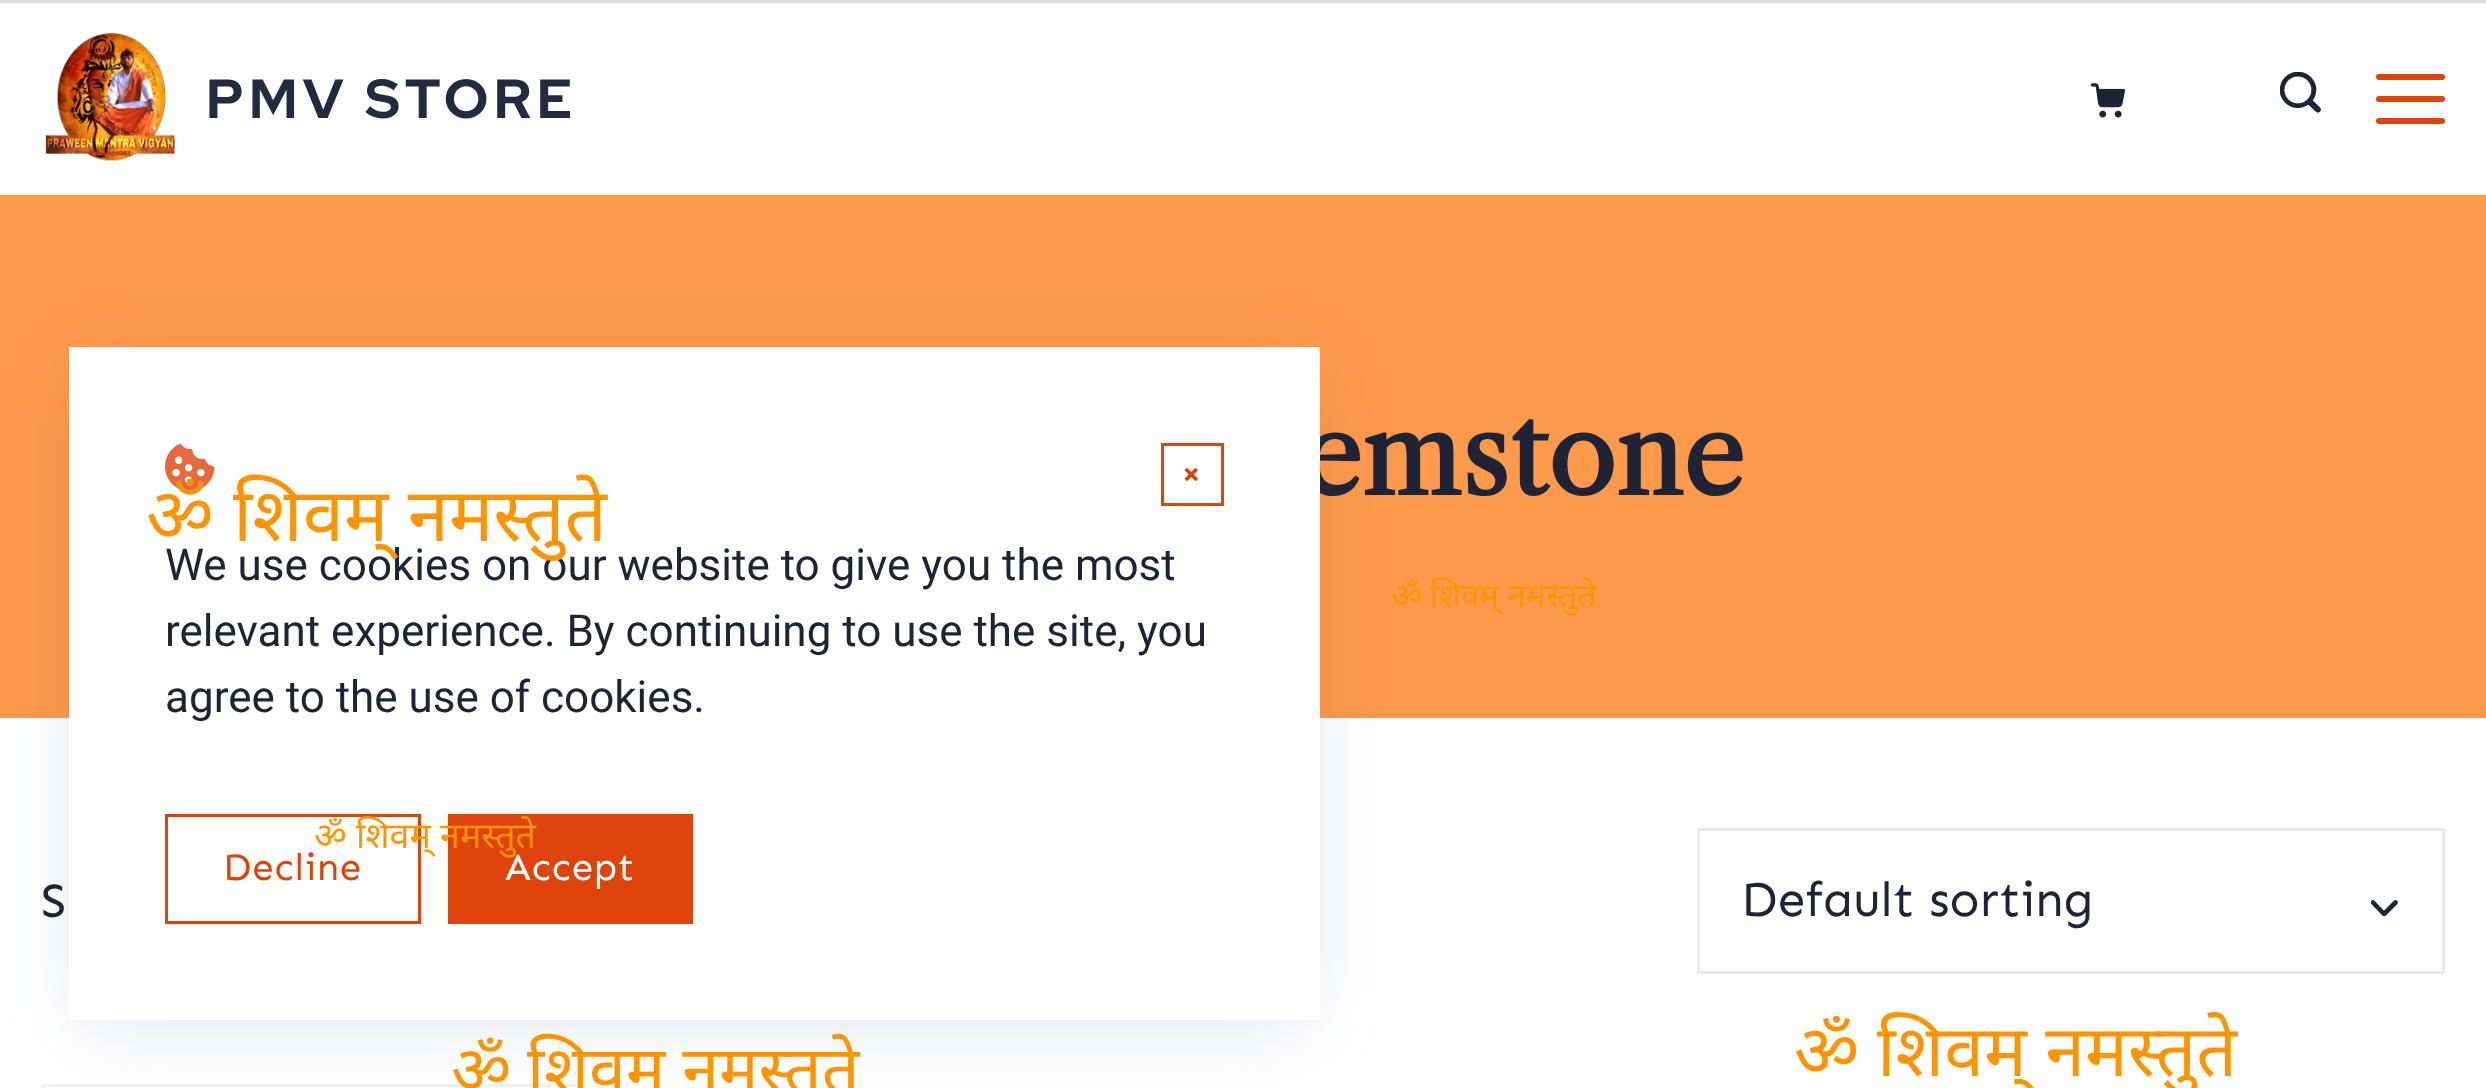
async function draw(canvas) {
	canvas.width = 2486;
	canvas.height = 1088;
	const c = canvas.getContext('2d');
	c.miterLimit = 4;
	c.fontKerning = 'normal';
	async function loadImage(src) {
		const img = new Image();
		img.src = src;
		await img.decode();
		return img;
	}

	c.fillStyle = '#fff';
	c.fillRect(0, 0, 2486, 1088);
	c.fillStyle = '#ddd';
	c.fillRect(0, 0, 2486, 3);
	c.drawImage(await loadImage('img1.png'), 45, 33, 131, 128);
	c.letterSpacing = '5.5px';
	c.font = 'bold 55px Red Hat Display';
	c.fillStyle = '#242b40';
	c.fillText('PMV STORE', 206, 118);
	c.drawImage(await loadImage('img2.png'), 2090, 83, 36, 35);
	c.drawImage(await loadImage('img3.png'), 2280, 72, 41, 41);
	c.fillStyle = '#de430b';
	c.beginPath();
	c.roundRect(2376, 96, 69, 6, 3);
	c.fill();
	c.beginPath();
	c.roundRect(2376, 74, 69, 6, 3);
	c.fill();
	c.beginPath();
	c.roundRect(2376, 118, 69, 6, 3);
	c.fill();
	c.fillStyle = '#ff994b';
	c.fillRect(0, 195, 2486, 523);
	c.letterSpacing = '0px';
	c.font = 'bold 110px Libre Caslon Text';
	c.fillStyle = '#1e2436';
	c.fillText('emstone', 1300, 495);
	c.font = '49.5px Sen';
	c.fillText('S', 41, 917);
	c.strokeStyle = '#e9e9ec';
	c.lineWidth = 3;
	c.strokeRect(1698.5, 829.5, 745, 143);
	c.fillText('Default sorting', 1741, 916);
	c.save();
	c.beginPath();
	c.rect(2371, 899, 27, 17);
	c.clip();
	c.beginPath();
	c.moveTo(2395.5, 902.5);
	c.lineTo(2384, 914);
	c.lineTo(2373, 902.5);
	c.strokeStyle = '#1e2436';
	c.lineWidth = 4.6;
	c.lineCap = 'round';
	c.lineJoin = 'round';
	c.stroke();
	c.restore();
	c.strokeStyle = '#f1f1f1';
	c.strokeRect(42.5, 1085.5, 536, 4);
	c.fillStyle = '#22386526';
	c.filter = 'blur(41px)';
	c.beginPath();
	c.rect(83, 374, 1223, 646);
	c.fill();
	c.filter = 'none';
	c.fillStyle = '#fff';
	c.fillRect(69, 347, 1251, 673);
	c.drawImage(await loadImage('img4.png'), 165, 443, 50, 49);
	c.strokeStyle = '#de430b';
	c.strokeRect(1162.5, 444.5, 60, 60);
	c.letterSpacing = '0.75px';
	c.font = '41px Sen';
	c.fillStyle = '#de430b';
	c.fillText('×', 1179, 487);
	c.letterSpacing = '0px';
	c.font = '44px Roboto';
	c.fillStyle = '#1e2436';
	for (const [text, x, y] of [
		['We use cookies on our website to give you the most', 165, 580],
		['relevant experience. By continuing to use the site, you', 165, 646],
		['agree to the use of cookies.', 165, 712],
	]) {
		c.fillText(text, x, y);
	}
	c.strokeRect(166.5, 815.5, 253, 107);
	c.letterSpacing = '0.75px';
	c.font = '38.5px Sen';
	c.fillStyle = '#de430b';
	c.fillText('Decline', 223, 880);
	c.fillRect(448, 814, 245, 110);
	c.fillStyle = '#fff';
	c.fillText('Accept', 505, 880);
	c.letterSpacing = '0px';
	c.font = '74.25px Noto Sans';
	c.fillStyle = '#ff9300';
	c.fillText('ॐ', 146, 541);
	c.fillText('शिवम् नमस्तुते', 233, 541);
	c.font = '33px Noto Sans';
	c.fillText('ॐ', 1392, 607);
	c.fillText('शिवम् नमस्तुते', 1430, 607);
	c.font = '35.75px Noto Sans';
	c.fillText('ॐ', 314, 848);
	c.fillText('शिवम् नमस्तुते', 356, 848);
	c.font = '66px Noto Sans';
	c.fillText('ॐ', 451, 1093);
	c.fillText('शिवम् नमस्तुते', 527, 1093);
	c.font = '71.5px Noto Sans';
	c.fillText('ॐ', 1794, 1076);
	c.fillText('शिवम् नमस्तुते', 1877, 1076);
}

draw(document.querySelector('canvas'));
